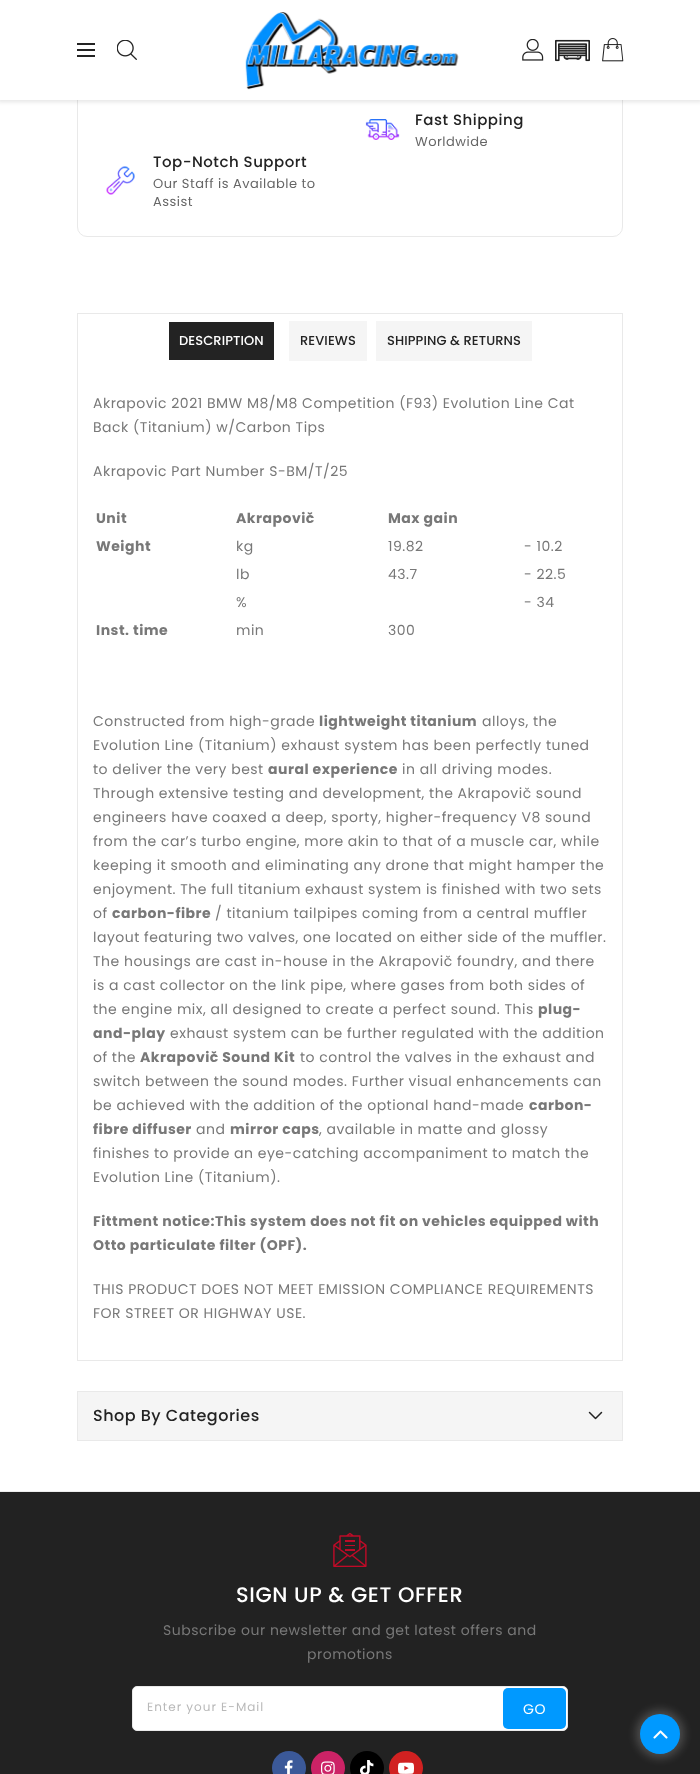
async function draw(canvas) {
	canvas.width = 700;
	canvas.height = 1774;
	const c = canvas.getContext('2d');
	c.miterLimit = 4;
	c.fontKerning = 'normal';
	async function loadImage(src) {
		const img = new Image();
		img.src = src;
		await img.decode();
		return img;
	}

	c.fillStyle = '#fff';
	c.fillRect(0, 0, 700, 1774);
	c.beginPath();
	c.roundRect(77.5, 11.5, 545, 225, 9.5);
	c.strokeStyle = '#e9e9e9';
	c.stroke();
	c.fillStyle = '#0000001a';
	c.filter = 'blur(2px)';
	c.beginPath();
	c.rect(-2, -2, 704, 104);
	c.fill();
	c.filter = 'none';
	for (const [x, y, w, h, color] of [
		[0, 0, 700, 100, '#fff'],
		[77, 43, 18, 2, '#232323'],
		[77, 49, 18, 2, '#232323'],
		[77, 55, 18, 2, '#232323'],
	]) {
		c.fillStyle = color;
		c.fillRect(x, y, w, h);
	}
	c.drawImage(await loadImage('img1.png'), 117, 40, 20, 20);
	c.drawImage(await loadImage('img2.png'), 245, 12, 214, 78);
	c.drawImage(await loadImage('img3.png'), 522, 39, 22, 22);
	c.drawImage(await loadImage('img4.png'), 555, 39, 35, 23);
	c.drawImage(await loadImage('img5.png'), 602, 38, 22, 24);
	c.drawImage(await loadImage('img6.png'), 365, 119, 35, 21);
	c.letterSpacing = '0.5px';
	c.font = '500 15px Poppins';
	c.fillText('Fast Shipping', 415, 125);
	c.font = '13px Poppins';
	c.fillStyle = '#666';
	c.fillText('Worldwide', 415, 146);
	c.drawImage(await loadImage('img7.png'), 106, 166, 29, 29);
	c.font = '500 15px Poppins';
	c.fillStyle = '#232323';
	c.fillText('Top-Notch Support', 153, 167);
	c.font = '13px Poppins';
	c.fillStyle = '#666';
	c.fillText('Our Staff is Available to', 153, 188);
	c.fillText('Assist', 153, 206);
	c.strokeRect(77.5, 313.5, 545, 1047);
	c.fillStyle = '#232323';
	c.fillRect(169, 322, 105, 38);
	c.letterSpacing = '0.1px';
	c.font = '500 13px Poppins';
	c.fillStyle = '#fff';
	c.fillText('DESCRIPTION', 179, 345);
	c.fillStyle = '#f5f5f5';
	c.fillRect(289, 321, 78, 40);
	c.fillStyle = '#232323';
	c.fillText('REVIEWS', 300, 345);
	c.fillStyle = '#f5f5f5';
	c.fillRect(376, 321, 156, 40);
	c.fillStyle = '#232323';
	c.fillText('SHIPPING & RETURNS', 387, 345);
	c.letterSpacing = '0.5px';
	c.font = '14px Poppins';
	c.fillStyle = '#787878';
	for (const [text, x, y] of [
		['Akrapovic 2021 BMW M8/M8 Competition (F93) Evolution Line Cat', 93, 408],
		['Back (Titanium) w/Carbon Tips', 93, 432],
		['Akrapovic Part Number S-BM/T/25', 93, 476],
	]) {
		c.fillText(text, x, y);
	}
	c.font = 'bold 14px Poppins';
	for (const [text, x, y] of [
		['Unit', 96, 523],
		['Akrapovič', 236, 523],
		['Max gain', 388, 523],
		['Weight', 96, 551],
	]) {
		c.fillText(text, x, y);
	}
	c.font = '14px Poppins';
	for (const [text, x, y] of [
		['kg', 236, 551],
		['19.82', 388, 551],
		['- 10.2', 524, 551],
		['lb', 236, 579],
		['43.7', 388, 579],
		['- 22.5', 524, 579],
		['%', 236, 607],
		['- 34', 524, 607],
	]) {
		c.fillText(text, x, y);
	}
	c.font = 'bold 14px Poppins';
	c.fillText('Inst. time', 96, 635);
	c.font = '14px Poppins';
	for (const [text, x, y] of [
		['min', 236, 635],
		['300', 388, 635],
		['Constructed from high-grade', 93, 726],
	]) {
		c.fillText(text, x, y);
	}
	c.font = 'bold 14px Poppins';
	c.fillText('lightweight titanium', 319, 726);
	c.font = '14px Poppins';
	for (const [text, x, y] of [
		['alloys, the', 482, 726],
		['Evolution Line (Titanium) exhaust system has been perfectly tuned', 93, 750],
		['to deliver the very best', 93, 774],
	]) {
		c.fillText(text, x, y);
	}
	c.font = 'bold 14px Poppins';
	c.fillText('aural experience', 268, 774);
	c.font = '14px Poppins';
	for (const [text, x, y] of [
		['in all driving modes.', 402, 774],
		['Through extensive testing and development, the Akrapovič sound', 93, 798],
		['engineers have coaxed a deep, sporty, higher-frequency V8 sound', 93, 822],
		['from the car’s turbo engine, more akin to that of a muscle car, while', 93, 846],
		['keeping it smooth and eliminating any drone that might hamper the', 93, 870],
		['enjoyment. The full titanium exhaust system is finished with two sets', 93, 894],
		['of', 93, 918],
	]) {
		c.fillText(text, x, y);
	}
	c.font = 'bold 14px Poppins';
	c.fillText('carbon-fibre', 112, 918);
	c.font = '14px Poppins';
	for (const [text, x, y] of [
		['/ titanium tailpipes coming from a central muffler', 215, 918],
		['layout featuring two valves, one located on either side of the muffler.', 93, 942],
		['The housings are cast in-house in the Akrapovič foundry, and there', 93, 966],
		['is a cast collector on the link pipe, where gases from both sides of', 93, 990],
		['the engine mix, all designed to create a perfect sound. This', 93, 1014],
	]) {
		c.fillText(text, x, y);
	}
	c.font = 'bold 14px Poppins';
	c.fillText('plug-', 538, 1014);
	c.fillText('and-play', 93, 1038);
	c.font = '14px Poppins';
	c.fillText('exhaust system can be further regulated with the addition', 170, 1038);
	c.fillText('of the', 93, 1062);
	c.font = 'bold 14px Poppins';
	c.fillText('Akrapovič Sound Kit', 140, 1062);
	c.font = '14px Poppins';
	for (const [text, x, y] of [
		['to control the valves in the exhaust and', 300, 1062],
		['switch between the sound modes. Further visual enhancements can', 93, 1086],
		['be achieved with the addition of the optional hand-made', 93, 1110],
	]) {
		c.fillText(text, x, y);
	}
	c.font = 'bold 14px Poppins';
	c.fillText('carbon-', 529, 1110);
	c.fillText('fibre diffuser', 93, 1134);
	c.font = '14px Poppins';
	c.fillText('and', 196, 1134);
	c.font = 'bold 14px Poppins';
	c.fillText('mirror caps', 230, 1134);
	c.font = '14px Poppins';
	for (const [text, x, y] of [
		[', available in matte and glossy', 319, 1134],
		['finishes to provide an eye-catching accompaniment to match the', 93, 1158],
		['Evolution Line (Titanium).', 93, 1182],
	]) {
		c.fillText(text, x, y);
	}
	c.font = 'bold 14px Poppins';
	c.fillText('Fittment notice:This system does not fit on vehicles equipped with', 93, 1226);
	c.fillText('Otto particulate filter (OPF).', 93, 1250);
	c.font = '14px Poppins';
	c.fillText('THIS PRODUCT DOES NOT MEET EMISSION COMPLIANCE REQUIREMENTS', 93, 1294);
	c.fillText('FOR STREET OR HIGHWAY USE.', 93, 1318);
	c.strokeRect(77.5, 1391.5, 545, 49);
	c.fillStyle = '#f5f5f5';
	c.fillRect(78, 1392, 544, 48);
	c.font = '500 16px Poppins';
	c.fillStyle = '#232323';
	c.fillText('Shop By Categories', 93, 1421);
	c.drawImage(await loadImage('img8.png'), 588, 1411, 15, 9);
	c.fillStyle = '#222';
	c.fillRect(0, 1492, 700, 282);
	c.fillStyle = '#eee';
	c.fillRect(0, 1491, 700, 1);
	c.drawImage(await loadImage('img9.png'), 333, 1532, 34, 35);
	c.letterSpacing = '0.6px';
	c.font = '500 21px Poppins';
	c.fillStyle = '#fff';
	c.fillText('SIGN UP & GET OFFER', 236, 1602);
	c.letterSpacing = '0.5px';
	c.font = '14px Poppins';
	c.fillStyle = '#787878';
	c.fillText('Subscribe our newsletter and get latest offers and', 163, 1635);
	c.fillText('promotions', 307, 1659);
	c.fillStyle = '#fff';
	c.beginPath();
	c.roundRect(132.5, 1686.5, 435, 44, 4.5);
	c.fill();
	c.stroke();
	c.letterSpacing = '1px';
	c.font = '12px Poppins';
	c.fillStyle = '#b9b9b9';
	c.fillText('Enter your E-Mail', 147, 1711);
	c.fillStyle = '#09f';
	c.beginPath();
	c.roundRect(503, 1688, 63, 41, 5);
	c.fill();
	c.letterSpacing = '0.5px';
	c.font = '14px Poppins';
	c.fillStyle = '#fff';
	c.fillText('GO', 523, 1714);
	c.fillStyle = '#3b5999';
	c.beginPath();
	c.arc(289, 1768, 17, 0, 2 * Math.PI);
	c.fill();
	c.drawImage(await loadImage('img10.png'), 284, 1760, 9, 14);
	c.fillStyle = '#cc2366';
	c.beginPath();
	c.arc(328, 1768, 17, 0, 2 * Math.PI);
	c.fill();
	c.drawImage(await loadImage('img11.png'), 321, 1761, 14, 13);
	c.fillStyle = '#000';
	c.beginPath();
	c.arc(367, 1768, 17, 0, 2 * Math.PI);
	c.fill();
	c.drawImage(await loadImage('img12.png'), 360, 1760, 14, 14);
	c.fillStyle = '#d12121';
	c.beginPath();
	c.arc(406, 1768, 17, 0, 2 * Math.PI);
	c.fill();
	c.drawImage(await loadImage('img13.png'), 398, 1762, 16, 12);
	c.fillStyle = '#ffffff33';
	c.filter = 'blur(5px)';
	c.beginPath();
	c.roundRect(636, 1710, 48, 48, 24);
	c.fill();
	c.filter = 'none';
	c.fillStyle = '#09f';
	c.beginPath();
	c.arc(660, 1734, 20, 0, 2 * Math.PI);
	c.fill();
	c.drawImage(await loadImage('img14.png'), 653, 1730, 15, 9);
}

draw(document.querySelector('canvas'));
